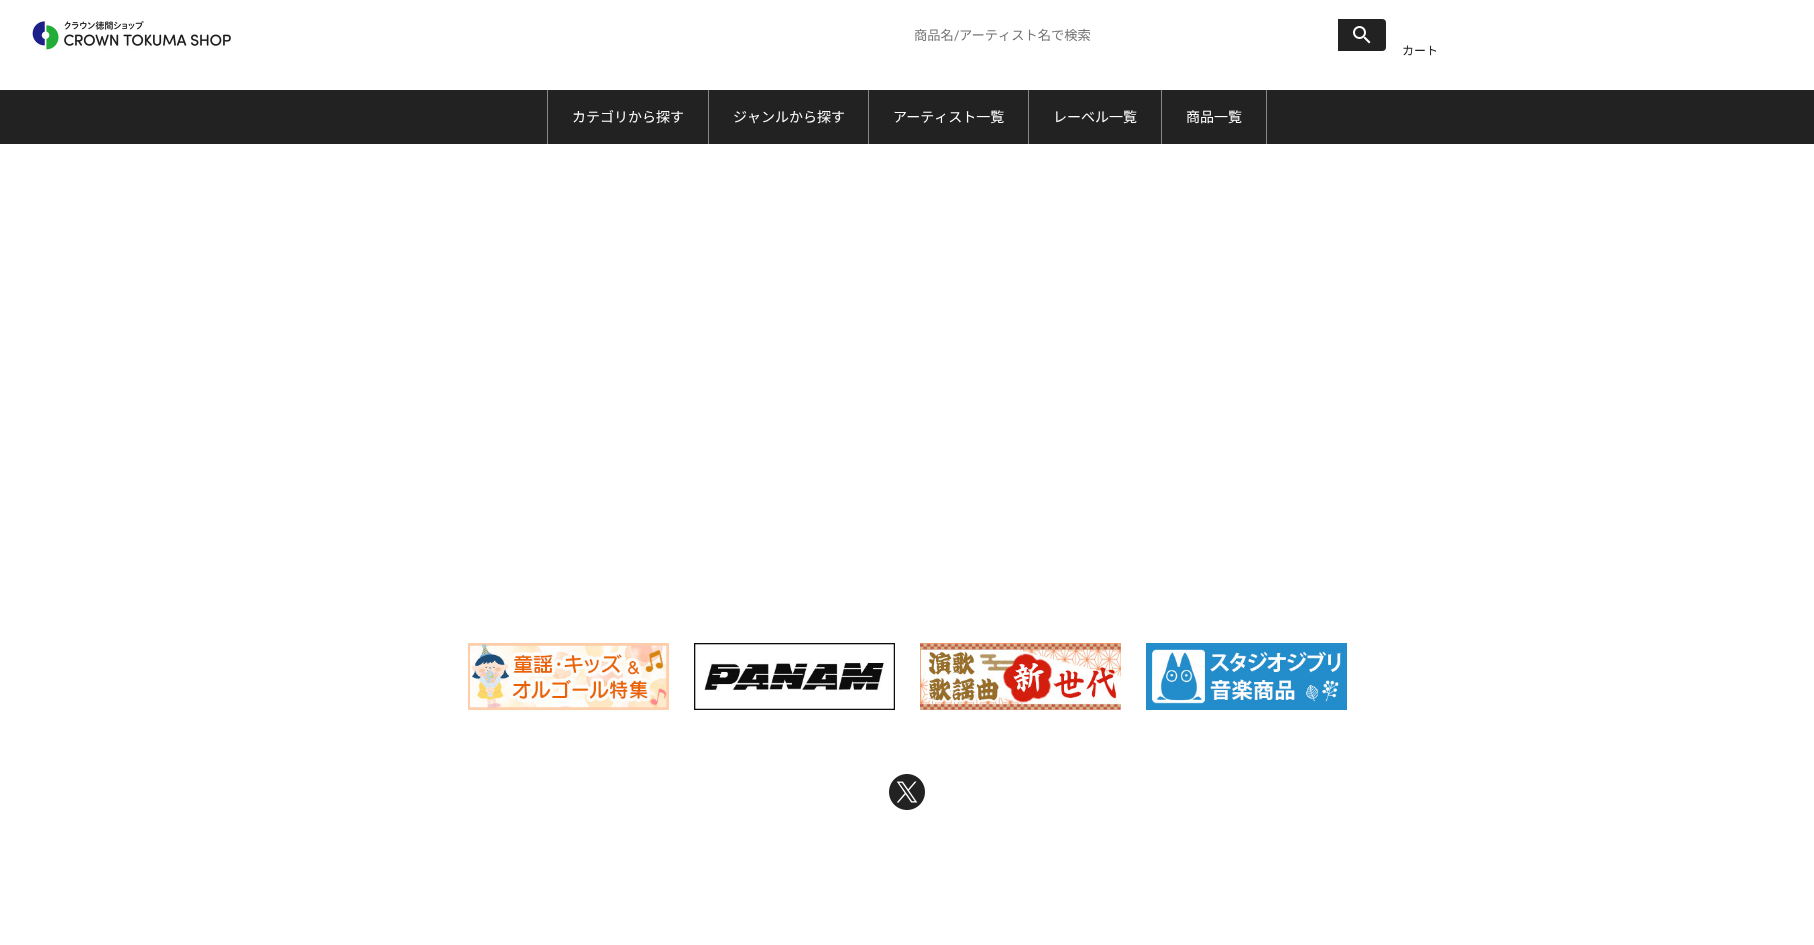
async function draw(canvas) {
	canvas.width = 1814;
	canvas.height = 945;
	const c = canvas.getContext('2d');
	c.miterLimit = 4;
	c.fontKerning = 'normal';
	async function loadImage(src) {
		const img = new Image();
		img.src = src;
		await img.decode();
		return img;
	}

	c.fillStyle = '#fff';
	c.fillRect(0, 0, 1814, 945);
	c.drawImage(await loadImage('img1.png'), 32, 20, 199, 32);
	c.font = '13.25px Noto Sans JP';
	c.fillStyle = '#757575';
	c.fillText('商品名', 914, 40);
	c.font = '13.25px Roboto';
	c.fillText('/', 954, 40);
	c.font = '13.25px Noto Sans JP';
	c.fillText('アーティスト名で検索', 959, 40);
	c.fillStyle = '#222';
	c.beginPath();
	c.roundRect(1338, 19, 48, 32, [0, 4, 4, 0]);
	c.fill();
	c.drawImage(await loadImage('img2.png'), 1353, 26, 18, 18);
	c.font = '12px Noto Sans JP';
	c.fillText('カート', 1402, 55);
	for (const [x, y, w, h, color] of [
		[0, 90, 1814, 54, '#222'],
		[708, 90, 1, 54, '#888'],
		[547, 90, 1, 54, '#888'],
	]) {
		c.fillStyle = color;
		c.fillRect(x, y, w, h);
	}
	c.font = '14px Noto Sans JP';
	c.fillStyle = '#fff';
	c.fillText('カテゴリから探す', 572, 122);
	c.fillStyle = '#888';
	c.fillRect(868, 90, 1, 54);
	c.fillStyle = '#fff';
	c.fillText('ジャンルから探す', 733, 122);
	c.fillStyle = '#888';
	c.fillRect(1028, 90, 1, 54);
	c.fillStyle = '#fff';
	c.fillText('アーティスト一覧', 893, 122);
	c.fillStyle = '#888';
	c.fillRect(1161, 90, 1, 54);
	c.fillStyle = '#fff';
	c.fillText('レーベル一覧', 1053, 122);
	c.fillStyle = '#888';
	c.fillRect(1266, 90, 1, 54);
	c.fillStyle = '#fff';
	c.fillText('商品一覧', 1186, 122);
	c.drawImage(await loadImage('img3.png'), 468, 643, 201, 67);
	c.drawImage(await loadImage('img4.png'), 694, 643, 201, 67);
	c.drawImage(await loadImage('img5.png'), 920, 643, 201, 67);
	c.drawImage(await loadImage('img6.png'), 1146, 643, 201, 67);
	c.drawImage(await loadImage('img7.png'), 889, 774, 36, 36);
}

draw(document.querySelector('canvas'));
